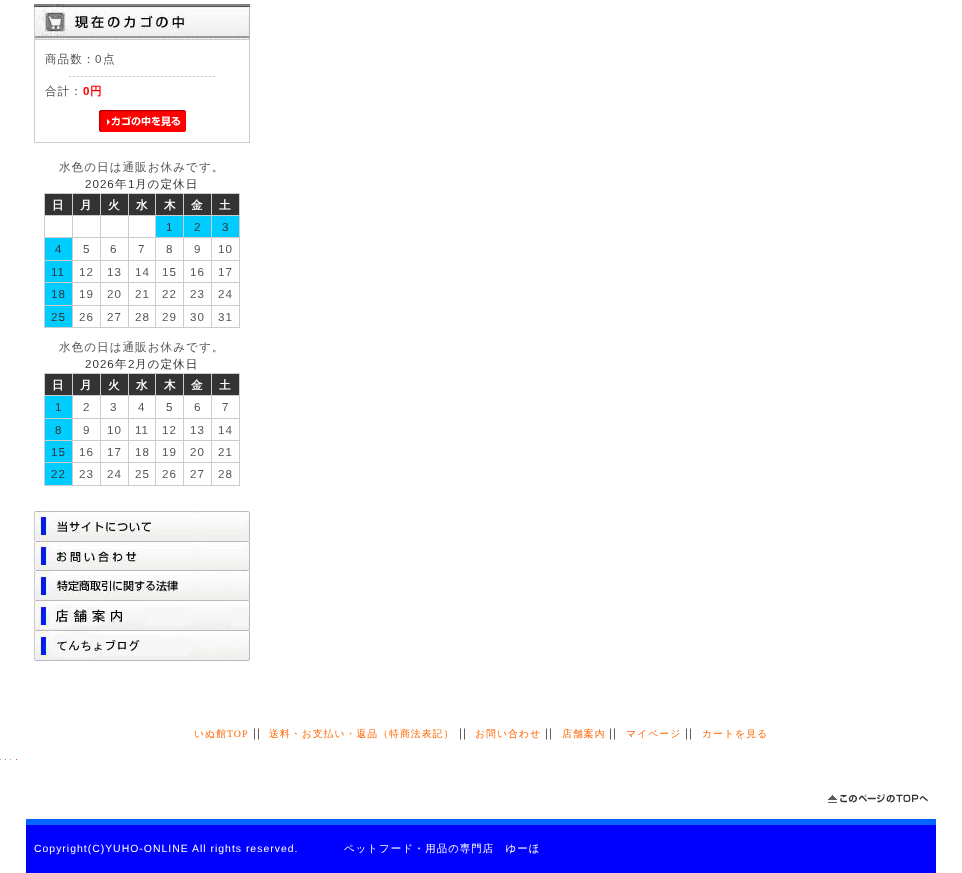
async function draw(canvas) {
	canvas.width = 962;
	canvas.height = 873;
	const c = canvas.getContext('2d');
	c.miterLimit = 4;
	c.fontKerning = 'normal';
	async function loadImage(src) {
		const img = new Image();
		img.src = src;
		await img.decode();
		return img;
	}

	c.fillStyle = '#fff';
	c.fillRect(0, 0, 962, 873);
	c.drawImage(await loadImage('img1.png'), 34, 4, 216, 35);
	c.strokeStyle = '#ccc';
	c.strokeRect(34.5, 39.5, 215, 103);
	c.drawImage(await loadImage('img2.png'), 69, 76, 146, 1);
	c.letterSpacing = '1px';
	c.font = '500 11.6px WenQuanYi Zen Hei';
	c.fillStyle = '#555';
	c.fillText('商品数：', 45, 63);
	c.font = '11.6px Liberation Sans';
	c.fillText('0', 95, 63);
	c.font = '500 11.6px WenQuanYi Zen Hei';
	c.fillText('点', 103, 63);
	c.fillText('合計：', 45, 95);
	c.font = 'bold 11.6px Liberation Sans';
	c.fillStyle = '#f00';
	c.fillText('0', 83, 95);
	c.font = 'bold 11.6px WenQuanYi Zen Hei';
	c.fillText('円', 90, 95);
	c.drawImage(await loadImage('img3.png'), 99, 110, 87, 22);
	c.font = '500 11.6px WenQuanYi Zen Hei';
	c.fillStyle = '#555';
	c.fillText('水色の日は通販お休みです。', 59, 171);
	c.font = '11.6px Liberation Sans';
	c.fillStyle = '#333';
	c.fillText('2026', 85, 188);
	c.font = '500 11.6px WenQuanYi Zen Hei';
	c.fillText('年', 115, 188);
	c.font = '11.6px Liberation Sans';
	c.fillText('1', 128, 188);
	c.font = '500 11.6px WenQuanYi Zen Hei';
	c.fillText('月の定休日', 135, 188);
	for (const [x, y, w, h, color] of [
		[45, 194, 27, 21, '#333'],
		[211, 193, 29, 1, '#ccc'],
		[211, 215, 29, 1, '#ccc'],
		[211, 237, 29, 1, '#ccc'],
		[211, 260, 29, 1, '#ccc'],
		[211, 282, 29, 1, '#ccc'],
		[211, 305, 29, 1, '#ccc'],
		[239, 305, 1, 23, '#ccc'],
		[211, 327, 29, 1, '#ccc'],
		[211, 305, 1, 23, '#ccc'],
		[183, 305, 29, 1, '#ccc'],
		[211, 282, 1, 24, '#ccc'],
		[183, 282, 29, 1, '#ccc'],
		[211, 260, 1, 23, '#ccc'],
		[183, 260, 29, 1, '#ccc'],
		[211, 237, 1, 24, '#ccc'],
		[183, 237, 29, 1, '#ccc'],
		[211, 215, 1, 23, '#ccc'],
		[183, 215, 29, 1, '#ccc'],
		[211, 193, 1, 23, '#ccc'],
		[183, 193, 29, 1, '#ccc'],
		[183, 327, 29, 1, '#ccc'],
		[183, 305, 1, 23, '#ccc'],
		[155, 305, 29, 1, '#ccc'],
		[183, 282, 1, 24, '#ccc'],
		[155, 282, 29, 1, '#ccc'],
		[183, 260, 1, 23, '#ccc'],
		[155, 260, 29, 1, '#ccc'],
		[183, 237, 1, 24, '#ccc'],
		[155, 237, 29, 1, '#ccc'],
		[183, 215, 1, 23, '#ccc'],
		[155, 215, 29, 1, '#ccc'],
		[183, 193, 1, 23, '#ccc'],
		[155, 193, 29, 1, '#ccc'],
		[155, 327, 29, 1, '#ccc'],
		[155, 305, 1, 23, '#ccc'],
		[128, 305, 28, 1, '#ccc'],
		[155, 282, 1, 24, '#ccc'],
		[128, 282, 28, 1, '#ccc'],
		[155, 260, 1, 23, '#ccc'],
		[128, 260, 28, 1, '#ccc'],
		[155, 237, 1, 24, '#ccc'],
		[128, 237, 28, 1, '#ccc'],
		[155, 215, 1, 23, '#ccc'],
		[128, 215, 28, 1, '#ccc'],
		[155, 193, 1, 23, '#ccc'],
		[128, 193, 28, 1, '#ccc'],
		[128, 327, 28, 1, '#ccc'],
		[128, 305, 1, 23, '#ccc'],
		[100, 305, 29, 1, '#ccc'],
		[128, 282, 1, 24, '#ccc'],
		[100, 282, 29, 1, '#ccc'],
		[128, 260, 1, 23, '#ccc'],
		[100, 260, 29, 1, '#ccc'],
		[128, 237, 1, 24, '#ccc'],
		[100, 237, 29, 1, '#ccc'],
		[128, 215, 1, 23, '#ccc'],
		[100, 215, 29, 1, '#ccc'],
		[128, 193, 1, 23, '#ccc'],
		[100, 193, 29, 1, '#ccc'],
		[100, 327, 29, 1, '#ccc'],
		[100, 305, 1, 23, '#ccc'],
		[72, 305, 29, 1, '#ccc'],
		[100, 282, 1, 24, '#ccc'],
		[72, 282, 29, 1, '#ccc'],
		[100, 260, 1, 23, '#ccc'],
		[72, 260, 29, 1, '#ccc'],
		[100, 237, 1, 24, '#ccc'],
		[72, 237, 29, 1, '#ccc'],
		[100, 215, 1, 23, '#ccc'],
		[72, 215, 29, 1, '#ccc'],
		[100, 193, 1, 23, '#ccc'],
		[72, 193, 29, 1, '#ccc'],
		[72, 327, 29, 1, '#ccc'],
		[72, 305, 1, 23, '#ccc'],
		[44, 305, 29, 1, '#ccc'],
		[72, 282, 1, 24, '#ccc'],
		[44, 282, 29, 1, '#ccc'],
		[72, 260, 1, 23, '#ccc'],
		[44, 260, 29, 1, '#ccc'],
		[72, 237, 1, 24, '#ccc'],
		[44, 237, 29, 1, '#ccc'],
		[72, 215, 1, 23, '#ccc'],
		[44, 215, 29, 1, '#ccc'],
		[72, 193, 1, 23, '#ccc'],
		[44, 193, 29, 1, '#ccc'],
		[44, 327, 29, 1, '#ccc'],
		[44, 305, 1, 23, '#ccc'],
		[44, 282, 1, 24, '#ccc'],
		[44, 260, 1, 23, '#ccc'],
		[44, 237, 1, 24, '#ccc'],
		[44, 215, 1, 23, '#ccc'],
		[44, 193, 1, 23, '#ccc'],
	]) {
		c.fillStyle = color;
		c.fillRect(x, y, w, h);
	}
	c.font = 'bold 11.6px WenQuanYi Zen Hei';
	c.fillStyle = '#fff';
	c.fillText('日', 52, 209);
	c.fillStyle = '#333';
	c.fillRect(73, 194, 27, 21);
	c.fillStyle = '#fff';
	c.fillText('月', 80, 209);
	c.fillStyle = '#333';
	c.fillRect(101, 194, 27, 21);
	c.fillStyle = '#fff';
	c.fillText('火', 108, 209);
	c.fillStyle = '#333';
	c.fillRect(129, 194, 26, 21);
	c.fillStyle = '#fff';
	c.fillText('水', 136, 209);
	c.fillStyle = '#333';
	c.fillRect(156, 194, 27, 21);
	c.fillStyle = '#fff';
	c.fillText('木', 164, 209);
	c.fillStyle = '#333';
	c.fillRect(184, 194, 27, 21);
	c.fillStyle = '#fff';
	c.fillText('金', 191, 209);
	for (const [x, y, w, h, color] of [
		[212, 194, 27, 21, '#333'],
		[239, 282, 1, 24, '#ccc'],
		[239, 260, 1, 23, '#ccc'],
		[239, 237, 1, 24, '#ccc'],
		[239, 215, 1, 23, '#ccc'],
		[239, 193, 1, 23, '#ccc'],
	]) {
		c.fillStyle = color;
		c.fillRect(x, y, w, h);
	}
	c.fillStyle = '#fff';
	c.fillText('土', 219, 209);
	c.fillStyle = '#0cf';
	c.fillRect(156, 216, 27, 21);
	c.font = '11.6px Liberation Sans';
	c.fillStyle = '#333';
	c.fillText('1', 166, 231);
	c.fillStyle = '#0cf';
	c.fillRect(184, 216, 27, 21);
	c.fillStyle = '#333';
	c.fillText('2', 194, 231);
	c.fillStyle = '#0cf';
	c.fillRect(212, 216, 27, 21);
	c.fillStyle = '#333';
	c.fillText('3', 222, 231);
	c.fillStyle = '#0cf';
	c.fillRect(45, 238, 27, 22);
	c.fillStyle = '#333';
	c.fillText('4', 55, 253);
	c.fillStyle = '#555';
	for (const [text, x, y] of [
		['5', 83, 253],
		['6', 110, 253],
		['7', 138, 253],
		['8', 166, 253],
		['9', 194, 253],
		['10', 218, 253],
	]) {
		c.fillText(text, x, y);
	}
	c.fillStyle = '#0cf';
	c.fillRect(45, 261, 27, 21);
	c.fillStyle = '#333';
	c.fillText('11', 51, 276);
	c.fillStyle = '#555';
	for (const [text, x, y] of [
		['12', 79, 276],
		['13', 107, 276],
		['14', 135, 276],
		['15', 162, 276],
		['16', 190, 276],
		['17', 218, 276],
	]) {
		c.fillText(text, x, y);
	}
	c.fillStyle = '#0cf';
	c.fillRect(45, 283, 27, 22);
	c.fillStyle = '#333';
	c.fillText('18', 51, 298);
	c.fillStyle = '#555';
	for (const [text, x, y] of [
		['19', 79, 298],
		['20', 107, 298],
		['21', 135, 298],
		['22', 162, 298],
		['23', 190, 298],
		['24', 218, 298],
	]) {
		c.fillText(text, x, y);
	}
	c.fillStyle = '#0cf';
	c.fillRect(45, 306, 27, 21);
	c.fillStyle = '#333';
	c.fillText('25', 51, 321);
	c.fillStyle = '#555';
	for (const [text, x, y] of [
		['26', 79, 321],
		['27', 107, 321],
		['28', 135, 321],
		['29', 162, 321],
		['30', 190, 321],
		['31', 218, 321],
	]) {
		c.fillText(text, x, y);
	}
	c.font = '500 11.6px WenQuanYi Zen Hei';
	c.fillText('水色の日は通販お休みです。', 59, 351);
	c.font = '11.6px Liberation Sans';
	c.fillStyle = '#333';
	c.fillText('2026', 85, 368);
	c.font = '500 11.6px WenQuanYi Zen Hei';
	c.fillText('年', 115, 368);
	c.font = '11.6px Liberation Sans';
	c.fillText('2', 128, 368);
	c.font = '500 11.6px WenQuanYi Zen Hei';
	c.fillText('月の定休日', 135, 368);
	for (const [x, y, w, h, color] of [
		[45, 374, 27, 21, '#333'],
		[211, 373, 29, 1, '#ccc'],
		[211, 395, 29, 1, '#ccc'],
		[211, 418, 29, 1, '#ccc'],
		[211, 440, 29, 1, '#ccc'],
		[211, 462, 29, 1, '#ccc'],
		[239, 462, 1, 24, '#ccc'],
		[211, 485, 29, 1, '#ccc'],
		[211, 462, 1, 24, '#ccc'],
		[183, 462, 29, 1, '#ccc'],
		[211, 440, 1, 23, '#ccc'],
		[183, 440, 29, 1, '#ccc'],
		[211, 418, 1, 23, '#ccc'],
		[183, 418, 29, 1, '#ccc'],
		[211, 395, 1, 24, '#ccc'],
		[183, 395, 29, 1, '#ccc'],
		[211, 373, 1, 23, '#ccc'],
		[183, 373, 29, 1, '#ccc'],
		[183, 485, 29, 1, '#ccc'],
		[183, 462, 1, 24, '#ccc'],
		[155, 462, 29, 1, '#ccc'],
		[183, 440, 1, 23, '#ccc'],
		[155, 440, 29, 1, '#ccc'],
		[183, 418, 1, 23, '#ccc'],
		[155, 418, 29, 1, '#ccc'],
		[183, 395, 1, 24, '#ccc'],
		[155, 395, 29, 1, '#ccc'],
		[183, 373, 1, 23, '#ccc'],
		[155, 373, 29, 1, '#ccc'],
		[155, 485, 29, 1, '#ccc'],
		[155, 462, 1, 24, '#ccc'],
		[128, 462, 28, 1, '#ccc'],
		[155, 440, 1, 23, '#ccc'],
		[128, 440, 28, 1, '#ccc'],
		[155, 418, 1, 23, '#ccc'],
		[128, 418, 28, 1, '#ccc'],
		[155, 395, 1, 24, '#ccc'],
		[128, 395, 28, 1, '#ccc'],
		[155, 373, 1, 23, '#ccc'],
		[128, 373, 28, 1, '#ccc'],
		[128, 485, 28, 1, '#ccc'],
		[128, 462, 1, 24, '#ccc'],
		[100, 462, 29, 1, '#ccc'],
		[128, 440, 1, 23, '#ccc'],
		[100, 440, 29, 1, '#ccc'],
		[128, 418, 1, 23, '#ccc'],
		[100, 418, 29, 1, '#ccc'],
		[128, 395, 1, 24, '#ccc'],
		[100, 395, 29, 1, '#ccc'],
		[128, 373, 1, 23, '#ccc'],
		[100, 373, 29, 1, '#ccc'],
		[100, 485, 29, 1, '#ccc'],
		[100, 462, 1, 24, '#ccc'],
		[72, 462, 29, 1, '#ccc'],
		[100, 440, 1, 23, '#ccc'],
		[72, 440, 29, 1, '#ccc'],
		[100, 418, 1, 23, '#ccc'],
		[72, 418, 29, 1, '#ccc'],
		[100, 395, 1, 24, '#ccc'],
		[72, 395, 29, 1, '#ccc'],
		[100, 373, 1, 23, '#ccc'],
		[72, 373, 29, 1, '#ccc'],
		[72, 485, 29, 1, '#ccc'],
		[72, 462, 1, 24, '#ccc'],
		[44, 462, 29, 1, '#ccc'],
		[72, 440, 1, 23, '#ccc'],
		[44, 440, 29, 1, '#ccc'],
		[72, 418, 1, 23, '#ccc'],
		[44, 418, 29, 1, '#ccc'],
		[72, 395, 1, 24, '#ccc'],
		[44, 395, 29, 1, '#ccc'],
		[72, 373, 1, 23, '#ccc'],
		[44, 373, 29, 1, '#ccc'],
		[44, 485, 29, 1, '#ccc'],
		[44, 462, 1, 24, '#ccc'],
		[44, 440, 1, 23, '#ccc'],
		[44, 418, 1, 23, '#ccc'],
		[44, 395, 1, 24, '#ccc'],
		[44, 373, 1, 23, '#ccc'],
	]) {
		c.fillStyle = color;
		c.fillRect(x, y, w, h);
	}
	c.font = 'bold 11.6px WenQuanYi Zen Hei';
	c.fillStyle = '#fff';
	c.fillText('日', 52, 389);
	c.fillStyle = '#333';
	c.fillRect(73, 374, 27, 21);
	c.fillStyle = '#fff';
	c.fillText('月', 80, 389);
	c.fillStyle = '#333';
	c.fillRect(101, 374, 27, 21);
	c.fillStyle = '#fff';
	c.fillText('火', 108, 389);
	c.fillStyle = '#333';
	c.fillRect(129, 374, 26, 21);
	c.fillStyle = '#fff';
	c.fillText('水', 136, 389);
	c.fillStyle = '#333';
	c.fillRect(156, 374, 27, 21);
	c.fillStyle = '#fff';
	c.fillText('木', 164, 389);
	c.fillStyle = '#333';
	c.fillRect(184, 374, 27, 21);
	c.fillStyle = '#fff';
	c.fillText('金', 191, 389);
	for (const [x, y, w, h, color] of [
		[212, 374, 27, 21, '#333'],
		[239, 440, 1, 23, '#ccc'],
		[239, 418, 1, 23, '#ccc'],
		[239, 395, 1, 24, '#ccc'],
		[239, 373, 1, 23, '#ccc'],
	]) {
		c.fillStyle = color;
		c.fillRect(x, y, w, h);
	}
	c.fillStyle = '#fff';
	c.fillText('土', 219, 389);
	c.fillStyle = '#0cf';
	c.fillRect(45, 396, 27, 22);
	c.font = '11.6px Liberation Sans';
	c.fillStyle = '#333';
	c.fillText('1', 55, 411);
	c.fillStyle = '#555';
	for (const [text, x, y] of [
		['2', 83, 411],
		['3', 110, 411],
		['4', 138, 411],
		['5', 166, 411],
		['6', 194, 411],
		['7', 222, 411],
	]) {
		c.fillText(text, x, y);
	}
	c.fillStyle = '#0cf';
	c.fillRect(45, 419, 27, 21);
	c.fillStyle = '#333';
	c.fillText('8', 55, 434);
	c.fillStyle = '#555';
	for (const [text, x, y] of [
		['9', 83, 434],
		['10', 107, 434],
		['11', 135, 434],
		['12', 162, 434],
		['13', 190, 434],
		['14', 218, 434],
	]) {
		c.fillText(text, x, y);
	}
	c.fillStyle = '#0cf';
	c.fillRect(45, 441, 27, 21);
	c.fillStyle = '#333';
	c.fillText('15', 51, 456);
	c.fillStyle = '#555';
	for (const [text, x, y] of [
		['16', 79, 456],
		['17', 107, 456],
		['18', 135, 456],
		['19', 162, 456],
		['20', 190, 456],
		['21', 218, 456],
	]) {
		c.fillText(text, x, y);
	}
	c.fillStyle = '#0cf';
	c.fillRect(45, 463, 27, 22);
	c.fillStyle = '#333';
	c.fillText('22', 51, 478);
	c.fillStyle = '#555';
	for (const [text, x, y] of [
		['23', 79, 478],
		['24', 107, 478],
		['25', 135, 478],
		['26', 162, 478],
		['27', 190, 478],
		['28', 218, 478],
	]) {
		c.fillText(text, x, y);
	}
	c.drawImage(await loadImage('img4.png'), 34, 511, 216, 30);
	c.drawImage(await loadImage('img5.png'), 34, 541, 216, 30);
	c.drawImage(await loadImage('img6.png'), 34, 571, 216, 30);
	c.drawImage(await loadImage('img7.png'), 34, 601, 216, 30);
	c.drawImage(await loadImage('img8.png'), 34, 631, 216, 30);
	c.font = '500 9.9px WenQuanYi Zen Hei';
	c.fillStyle = '#f60';
	c.fillText('いぬ館', 194, 737);
	c.font = '9.9px Liberation Serif';
	c.fillText('TOP', 227, 737);
	c.font = '11.6px Liberation Sans';
	c.fillStyle = '#555';
	c.fillText('||', 253, 737);
	c.font = '500 9.9px WenQuanYi Zen Hei';
	c.fillStyle = '#f60';
	c.fillText('送料・お支払い・返品（特商法表記）', 269, 737);
	c.font = '11.6px Liberation Sans';
	c.fillStyle = '#555';
	c.fillText('||', 459, 737);
	c.font = '500 9.9px WenQuanYi Zen Hei';
	c.fillStyle = '#f60';
	c.fillText('お問い合わせ', 475, 737);
	c.font = '11.6px Liberation Sans';
	c.fillStyle = '#555';
	c.fillText('||', 545, 737);
	c.font = '500 9.9px WenQuanYi Zen Hei';
	c.fillStyle = '#f60';
	c.fillText('店舗案内', 562, 737);
	c.font = '11.6px Liberation Sans';
	c.fillStyle = '#555';
	c.fillText('||', 609, 737);
	c.font = '500 9.9px WenQuanYi Zen Hei';
	c.fillStyle = '#f60';
	c.fillText('マイページ', 626, 737);
	c.font = '11.6px Liberation Sans';
	c.fillStyle = '#555';
	c.fillText('||', 685, 737);
	c.font = '500 9.9px WenQuanYi Zen Hei';
	c.fillStyle = '#f60';
	c.fillText('カートを見る', 702, 737);
	for (const [x, y, w, h, color] of [
		[0, 759, 1, 1, '#afafaf'],
		[5, 759, 1, 1, '#898989'],
		[10, 759, 1, 1, '#f88585'],
		[16, 759, 1, 1, '#ef3f3f'],
	]) {
		c.fillStyle = color;
		c.fillRect(x, y, w, h);
	}
	c.drawImage(await loadImage('img9.png'), 828, 794, 100, 9);
	c.fillStyle = '#00f';
	c.fillRect(26, 825, 910, 48);
	c.fillStyle = '#06f';
	c.fillRect(26, 819, 910, 6);
	c.font = '10.45px Liberation Sans';
	c.fillStyle = '#fff';
	c.fillText('Copyright(C)YUHO-ONLINE All rights reserved.', 34, 852);
	c.font = '500 10.45px WenQuanYi Zen Hei';
	c.fillText('ペットフード・用品の専門店　ゆーほ', 344, 852);
}

draw(document.querySelector('canvas'));
